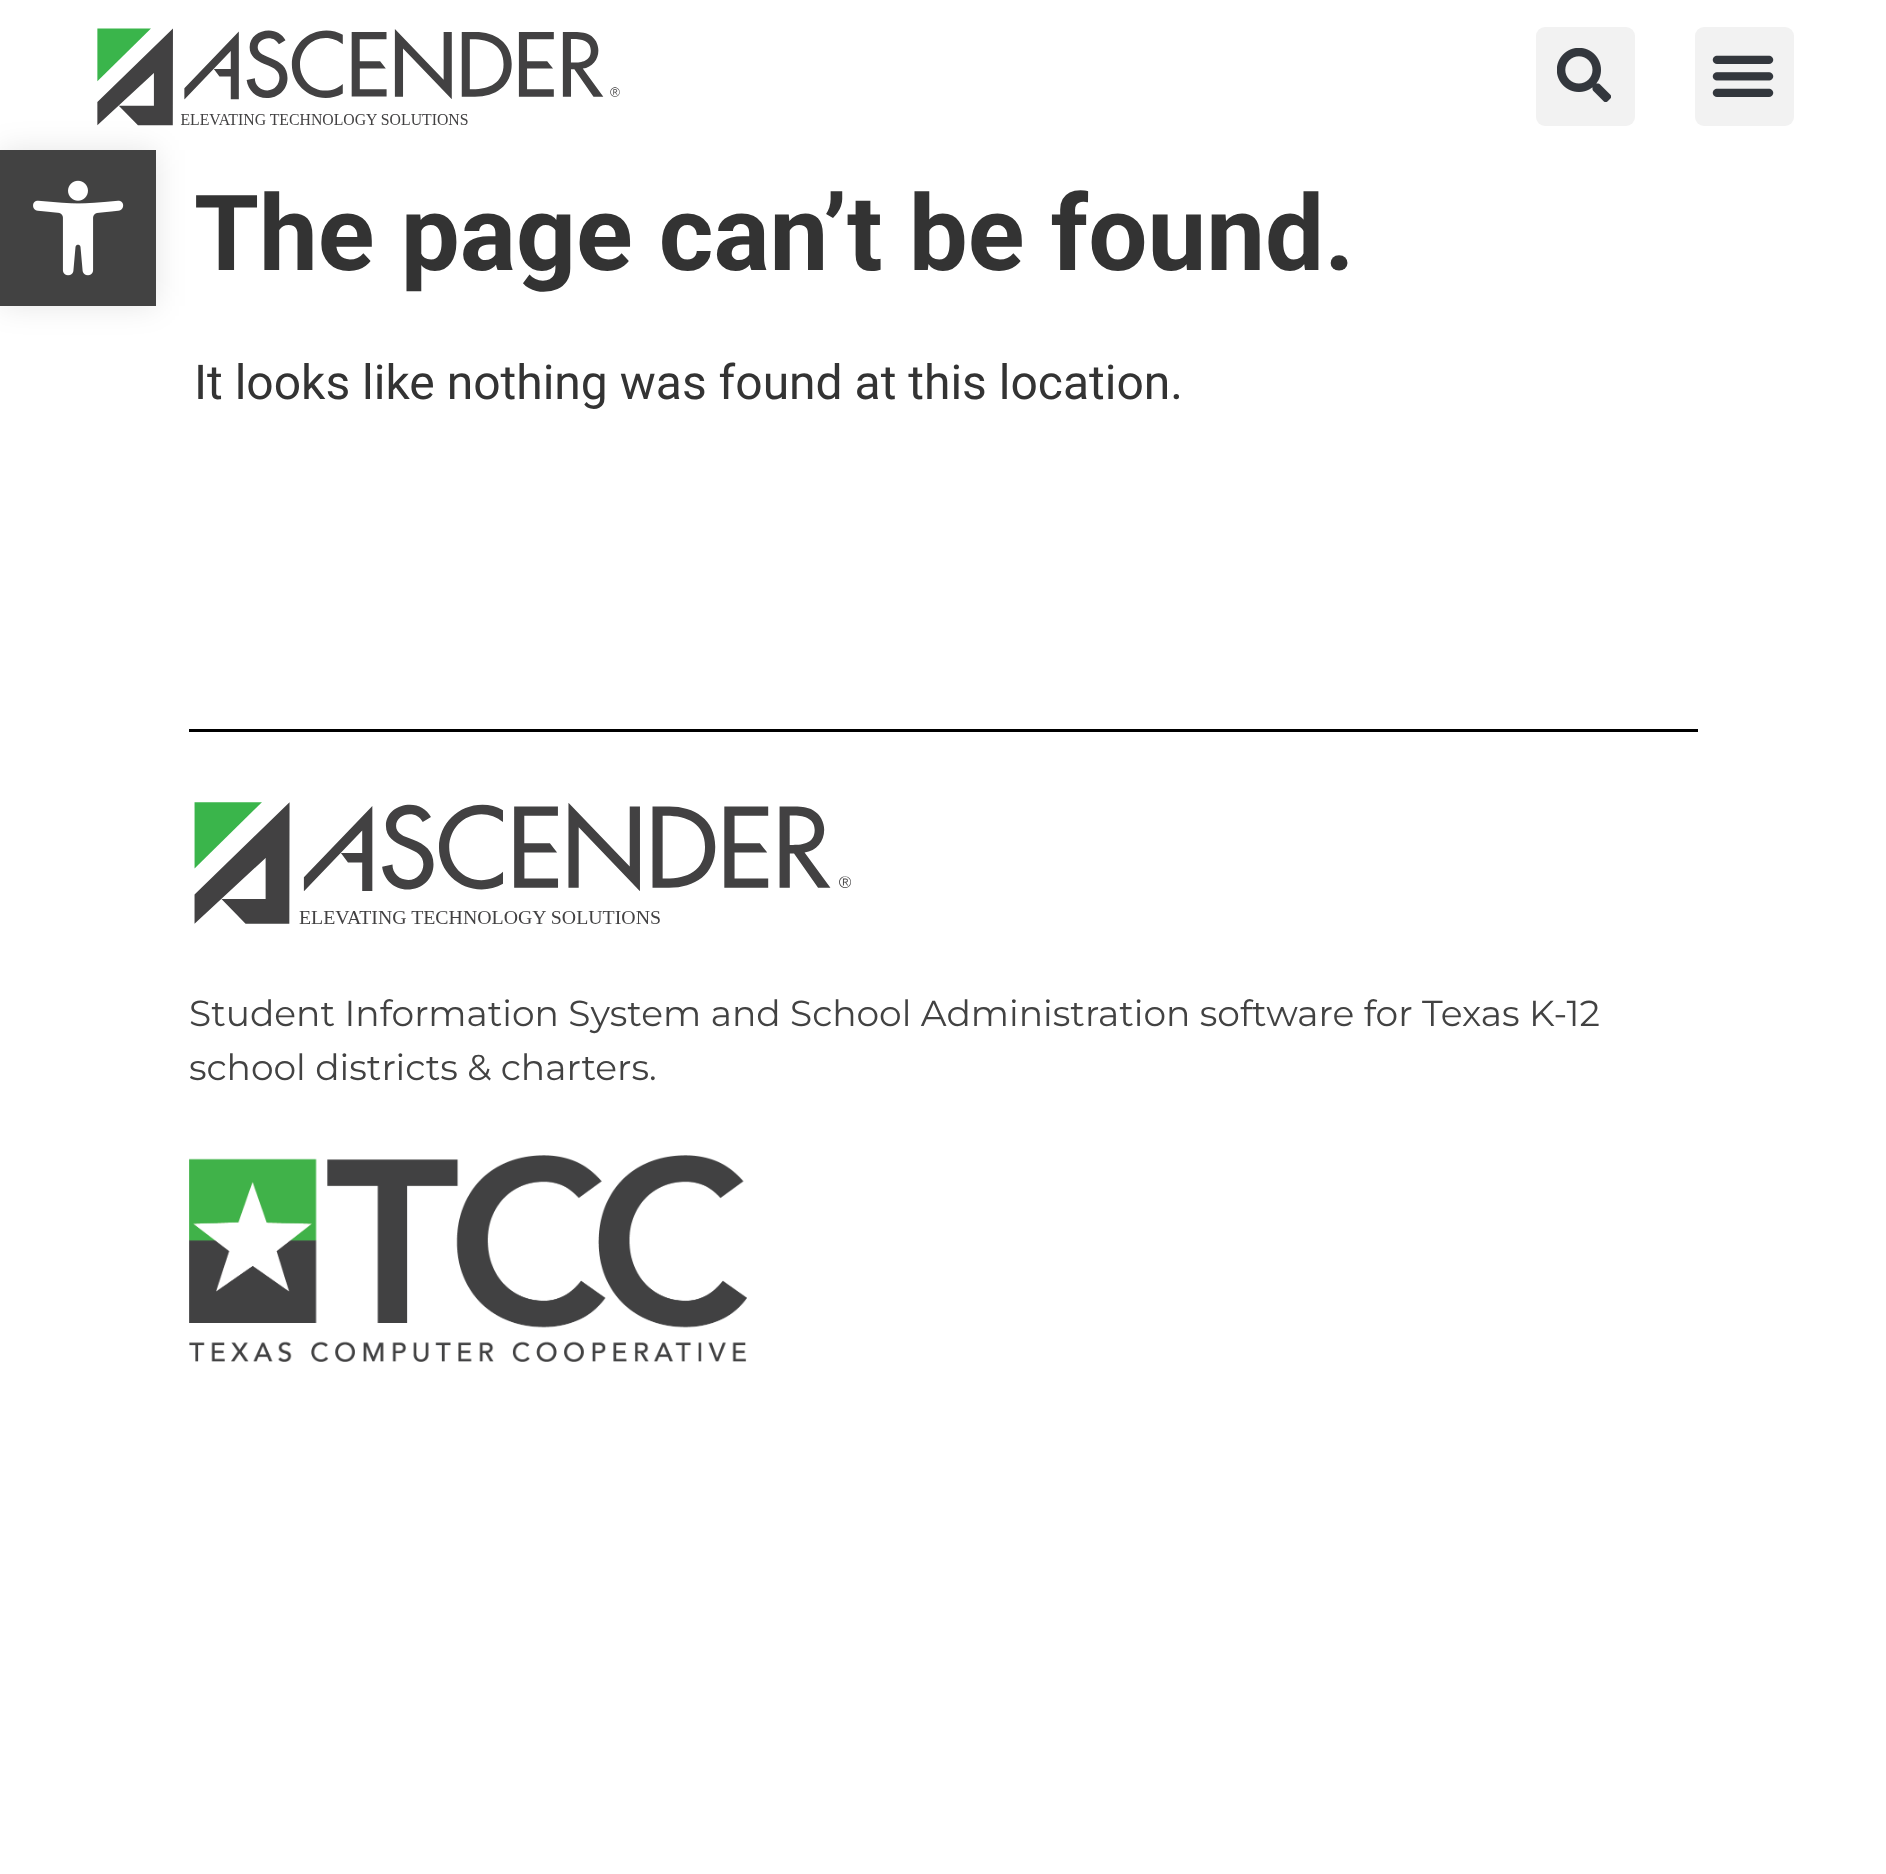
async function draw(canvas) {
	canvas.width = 1886;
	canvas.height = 1874;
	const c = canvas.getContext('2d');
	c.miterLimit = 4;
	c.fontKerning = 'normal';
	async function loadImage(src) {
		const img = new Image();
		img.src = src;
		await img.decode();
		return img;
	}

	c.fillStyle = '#fff';
	c.fillRect(0, 0, 1886, 1874);
	c.drawImage(await loadImage('img1.png'), 97, 28, 523, 98);
	c.fillStyle = '#f2f2f2';
	c.beginPath();
	c.roundRect(1536, 27, 99, 99, 9);
	c.fill();
	c.drawImage(await loadImage('img2.png'), 1557, 48, 54, 54);
	c.beginPath();
	c.roundRect(1695, 27, 99, 99, 9);
	c.fill();
	c.drawImage(await loadImage('img3.png'), 1712, 55, 62, 42);
	c.fillStyle = '#0000001a';
	c.filter = 'blur(15px)';
	c.beginPath();
	c.rect(0, 150, 156, 156);
	c.fill();
	c.filter = 'none';
	c.fillStyle = '#424242';
	c.fillRect(0, 150, 156, 156);
	c.drawImage(await loadImage('img4.png'), 33, 180, 91, 96);
	c.font = 'bold 105px Roboto';
	c.fillStyle = '#333';
	c.fillText('The page can’t be found.', 194, 270);
	c.font = '48px Roboto';
	c.fillText('It looks like nothing was found at this location.', 194, 399);
	c.fillStyle = '#000';
	c.fillRect(189, 729, 1509, 3);
	c.drawImage(await loadImage('img5.png'), 194, 802, 657, 122);
	c.font = '36px Montserrat';
	c.fillStyle = '#424242';
	c.fillText('Student Information System and School Administration software for Texas K-12', 189, 1026);
	c.fillText('school districts & charters.', 189, 1080);
	c.drawImage(await loadImage('img6.png'), 189, 1155, 558, 207);
}

draw(document.querySelector('canvas'));
